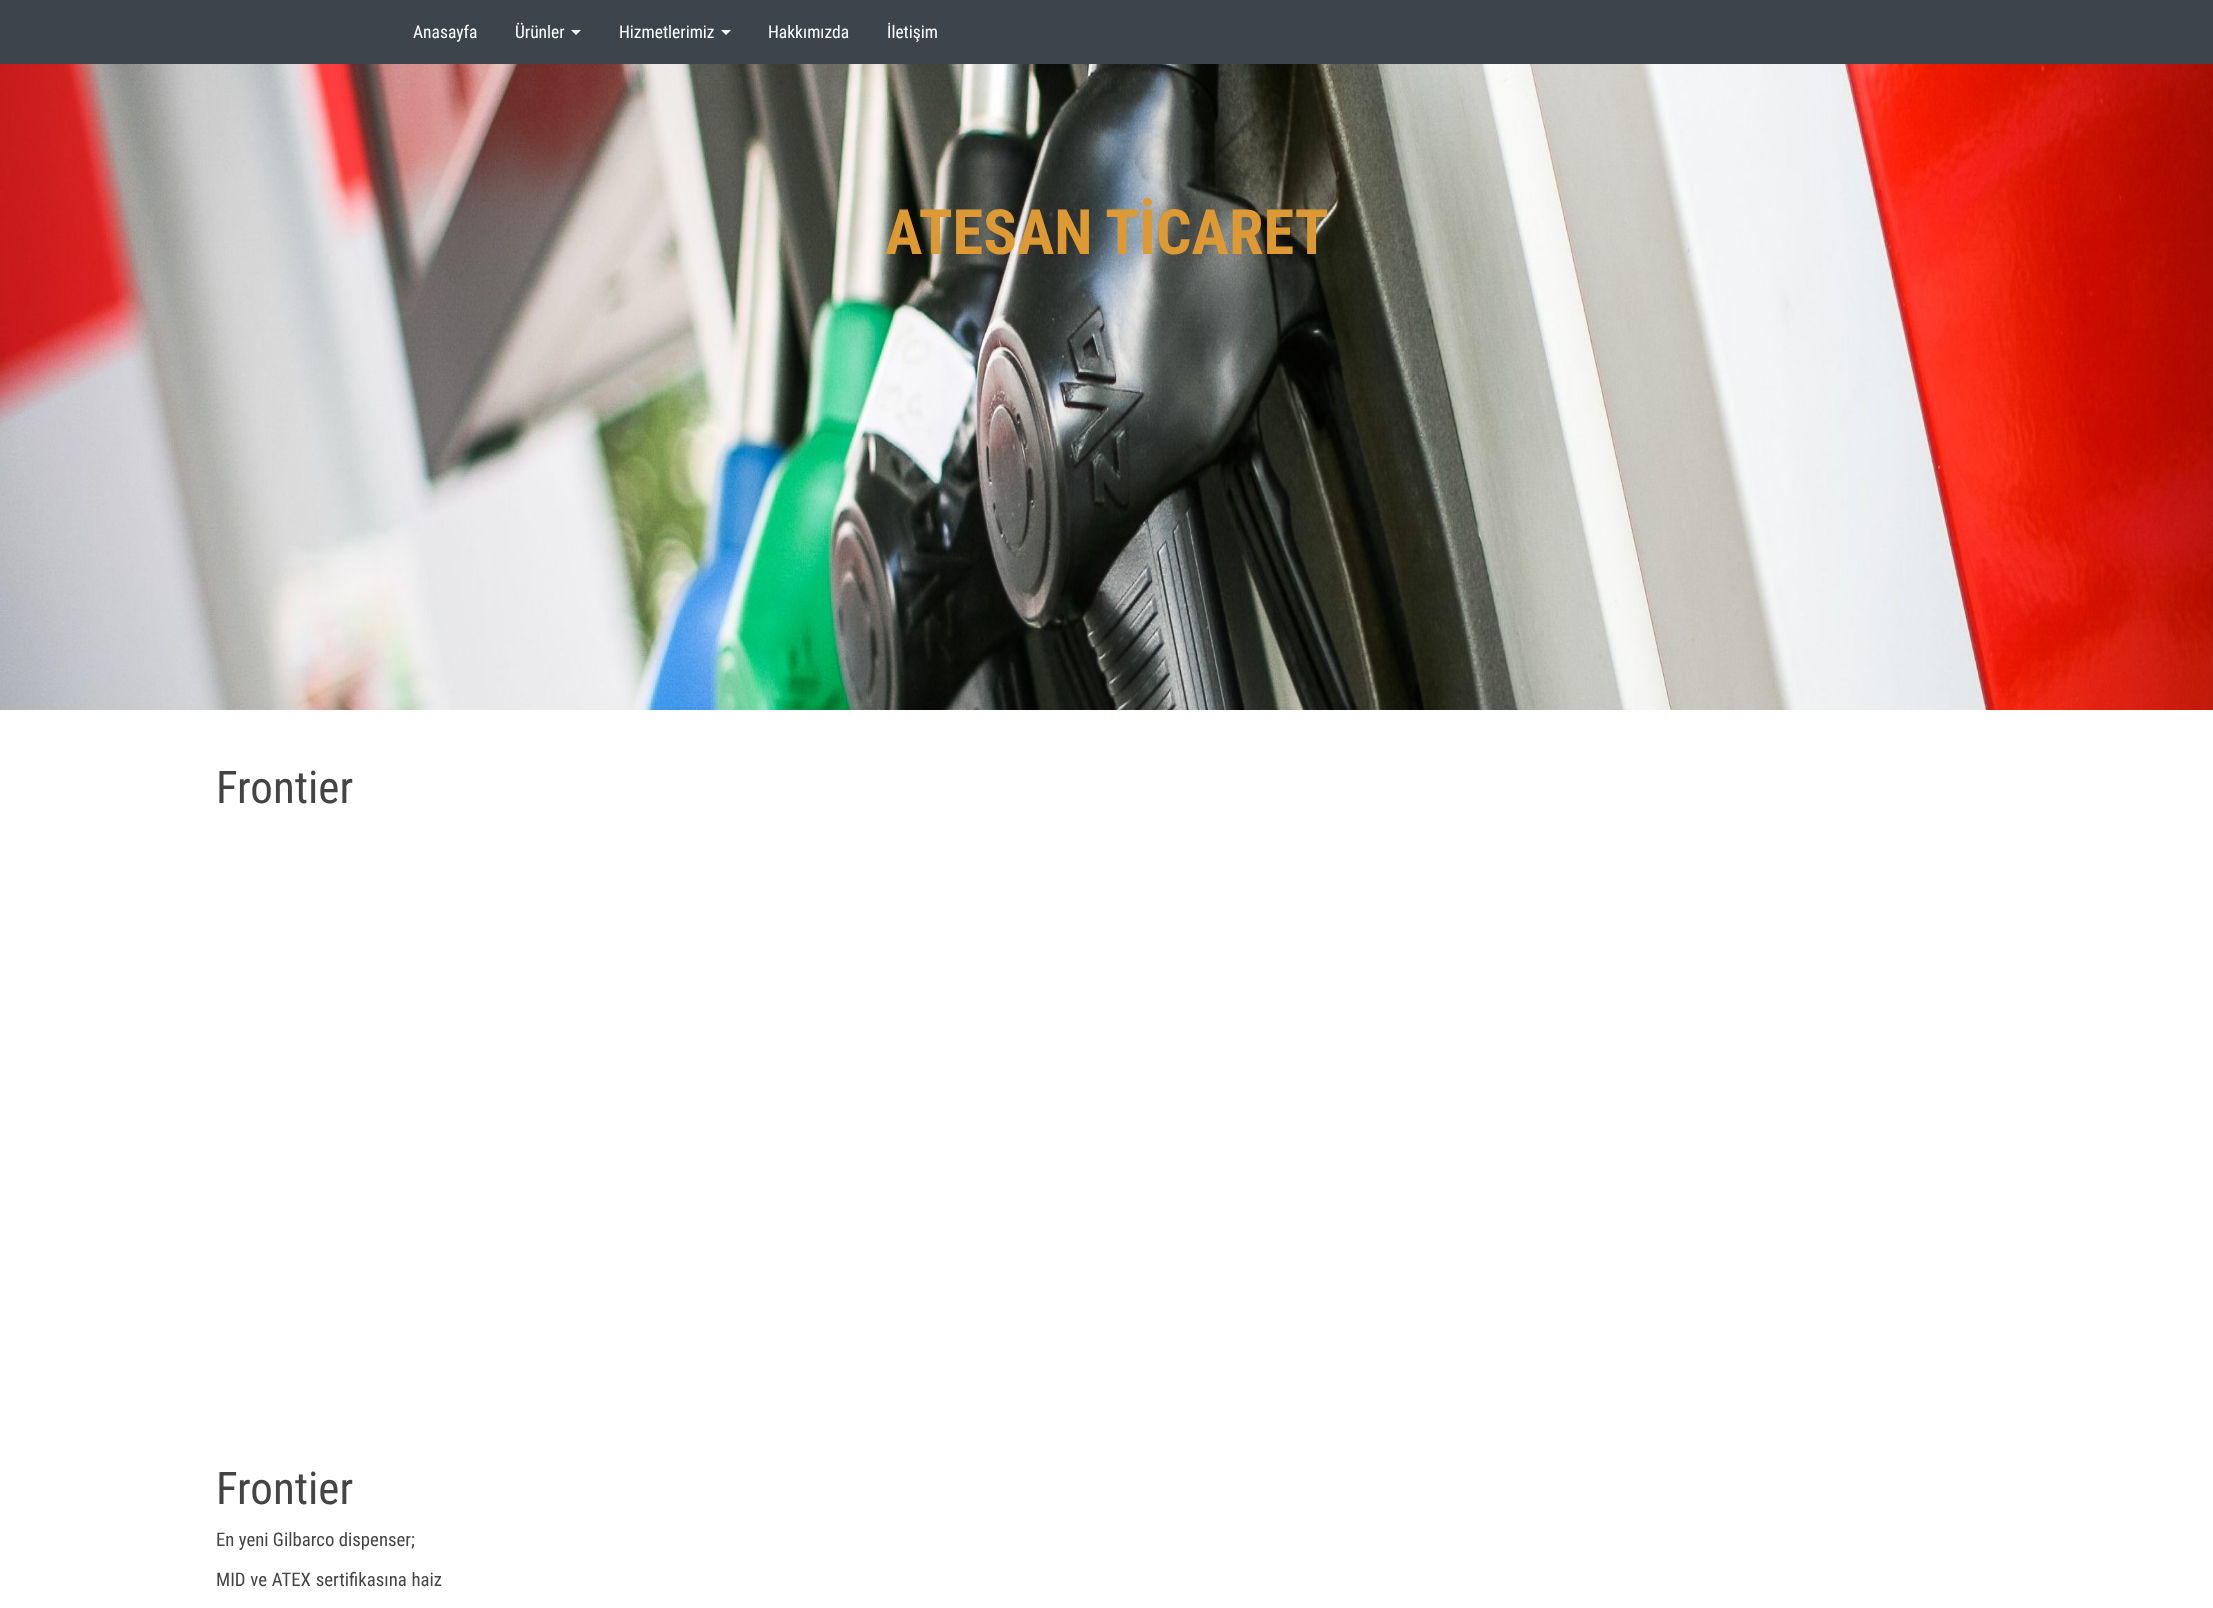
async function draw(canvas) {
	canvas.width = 2213;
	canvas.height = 1608;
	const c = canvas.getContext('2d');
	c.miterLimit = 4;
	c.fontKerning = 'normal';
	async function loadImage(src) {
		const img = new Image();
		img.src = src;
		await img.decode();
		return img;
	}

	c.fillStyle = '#fff';
	c.fillRect(0, 0, 2213, 1608);
	c.fillStyle = '#3c444c';
	c.fillRect(0, 0, 2213, 64);
	c.font = '17.5px Roboto Condensed';
	c.fillStyle = '#fff';
	c.fillText('Anasayfa', 413, 38);
	c.fillText('Ürünler', 515, 38);
	c.beginPath();
	c.moveTo(571, 30);
	c.lineTo(581, 30);
	c.lineTo(576, 35);
	c.closePath();
	c.fill();
	c.fillText('Hizmetlerimiz', 619, 38);
	c.beginPath();
	c.moveTo(721, 30);
	c.lineTo(731, 30);
	c.lineTo(726, 35);
	c.closePath();
	c.fill();
	c.fillText('Hakkımızda', 768, 38);
	c.fillText('İletişim', 887, 38);
	c.drawImage(await loadImage('img1.png'), 0, 64, 2213, 646);
	c.font = 'bold 62.5px Roboto Condensed';
	c.fillStyle = '#d93';
	c.fillText('ATESAN TİCARET', 885, 254);
	c.font = '45px Roboto Condensed';
	c.fillStyle = '#444';
	c.fillText('Frontier', 216, 803);
	c.fillText('Frontier', 216, 1504);
	c.font = '18.75px Roboto Condensed';
	c.fillText('En yeni Gilbarco dispenser;', 216, 1546);
	c.wordSpacing = '0.5px';
	c.fillText('MID ve ATEX sertifikasına haiz', 216, 1586);
}

draw(document.querySelector('canvas'));
